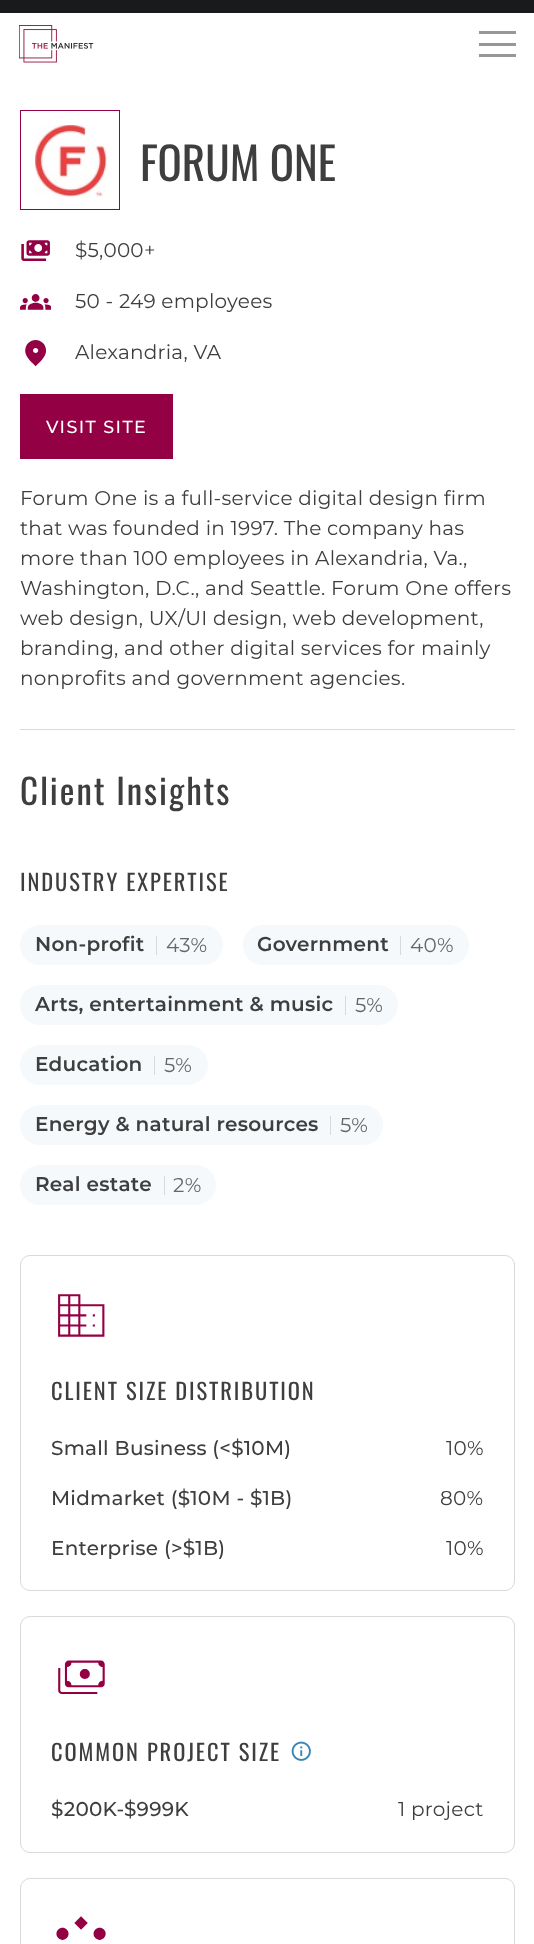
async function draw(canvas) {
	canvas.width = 534;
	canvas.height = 1944;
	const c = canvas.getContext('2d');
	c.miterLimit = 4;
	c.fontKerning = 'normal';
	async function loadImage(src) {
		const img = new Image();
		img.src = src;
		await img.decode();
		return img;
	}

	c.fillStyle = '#fff';
	c.fillRect(0, 0, 534, 1944);
	c.fillStyle = '#191a1c';
	c.fillRect(0, 0, 534, 13);
	c.drawImage(await loadImage('img1.png'), 19, 25, 75, 38);
	for (const [x, y, w, h, color] of [
		[479, 31, 37, 3, '#979797'],
		[479, 43, 37, 3, '#979797'],
		[479, 54, 37, 3, '#979797'],
		[20, 729, 495, 1, '#d9d9d9'],
	]) {
		c.fillStyle = color;
		c.fillRect(x, y, w, h);
	}
	c.strokeStyle = '#930043';
	c.strokeRect(20.5, 110.5, 99, 99);
	c.drawImage(await loadImage('img2.png'), 35, 125, 72, 72);
	c.font = '45px Oswald';
	c.fillStyle = '#3e3e3e';
	c.fillText('FORUM ONE', 140, 181);
	c.drawImage(await loadImage('img3.png'), 21, 240, 29, 21);
	c.letterSpacing = '0.25px';
	c.font = '20px Montserrat';
	c.fillText('$5,000+', 75, 257);
	c.drawImage(await loadImage('img4.png'), 20, 294, 31, 16);
	c.fillText('50 - 249 employees', 75, 308);
	c.drawImage(await loadImage('img5.png'), 25, 340, 21, 27);
	c.fillText('Alexandria, VA', 75, 359);
	c.fillStyle = '#930043';
	c.fillRect(20, 394, 153, 65);
	c.letterSpacing = '1.4px';
	c.font = '500 17.5px Montserrat';
	c.fillStyle = '#fff';
	c.fillText('VISIT SITE', 46, 433);
	c.letterSpacing = '0.25px';
	c.font = '20px Montserrat';
	c.fillStyle = '#3e3e3e';
	for (const [text, x, y] of [
		['Forum One is a full-service digital design firm', 20, 505],
		['that was founded in 1997. The company has', 20, 535],
		['more than 100 employees in Alexandria, Va.,', 20, 565],
		['Washington, D.C., and Seattle. Forum One offers', 20, 595],
		['web design, UX/UI design, web development,', 20, 625],
		['branding, and other digital services for mainly', 20, 655],
		['nonprofits and government agencies.', 20, 685],
	]) {
		c.fillText(text, x, y);
	}
	c.letterSpacing = '1.9px';
	c.font = '35px Oswald';
	c.fillText('Client Insights', 20, 805);
	c.font = '22.5px Oswald';
	c.fillText('INDUSTRY EXPERTISE', 20, 891);
	c.fillStyle = '#f5f9fb';
	c.beginPath();
	c.roundRect(20, 925, 203, 40, 20);
	c.fill();
	c.letterSpacing = '0.25px';
	c.font = '600 20px Montserrat';
	c.fillStyle = '#3e3e3e';
	c.fillText('Non-profit', 35, 951);
	c.fillStyle = '#d9d9d9';
	c.fillRect(156, 936, 1, 19);
	c.font = '20px Montserrat';
	c.fillStyle = '#666';
	c.fillText('43%', 166, 952);
	c.fillStyle = '#f5f9fb';
	c.beginPath();
	c.roundRect(243, 925, 226, 40, 20);
	c.fill();
	c.font = '600 20px Montserrat';
	c.fillStyle = '#3e3e3e';
	c.fillText('Government', 257, 951);
	c.fillStyle = '#d9d9d9';
	c.fillRect(400, 936, 1, 19);
	c.font = '20px Montserrat';
	c.fillStyle = '#666';
	c.fillText('40%', 410, 952);
	c.fillStyle = '#f5f9fb';
	c.beginPath();
	c.roundRect(20, 985, 378, 40, 20);
	c.fill();
	c.font = '600 20px Montserrat';
	c.fillStyle = '#3e3e3e';
	c.fillText('Arts, entertainment & music', 35, 1011);
	c.fillStyle = '#d9d9d9';
	c.fillRect(345, 996, 1, 19);
	c.font = '20px Montserrat';
	c.fillStyle = '#666';
	c.fillText('5%', 355, 1012);
	c.fillStyle = '#f5f9fb';
	c.beginPath();
	c.roundRect(20, 1045, 188, 40, 20);
	c.fill();
	c.font = '600 20px Montserrat';
	c.fillStyle = '#3e3e3e';
	c.fillText('Education', 35, 1071);
	c.fillStyle = '#d9d9d9';
	c.fillRect(154, 1056, 1, 19);
	c.font = '20px Montserrat';
	c.fillStyle = '#666';
	c.fillText('5%', 164, 1072);
	c.fillStyle = '#f5f9fb';
	c.beginPath();
	c.roundRect(20, 1105, 363, 40, 20);
	c.fill();
	c.font = '600 20px Montserrat';
	c.fillStyle = '#3e3e3e';
	c.fillText('Energy & natural resources', 35, 1131);
	c.fillStyle = '#d9d9d9';
	c.fillRect(330, 1116, 1, 19);
	c.font = '20px Montserrat';
	c.fillStyle = '#666';
	c.fillText('5%', 340, 1132);
	c.fillStyle = '#f5f9fb';
	c.beginPath();
	c.roundRect(20, 1165, 196, 40, 20);
	c.fill();
	c.font = '600 20px Montserrat';
	c.fillStyle = '#3e3e3e';
	c.fillText('Real estate', 35, 1191);
	c.fillStyle = '#d9d9d9';
	c.fillRect(164, 1176, 1, 19);
	c.font = '20px Montserrat';
	c.fillStyle = '#666';
	c.fillText('2%', 173, 1192);
	c.beginPath();
	c.roundRect(20.5, 1255.5, 494, 335, 9.5);
	c.strokeStyle = '#d9d9d9';
	c.stroke();
	c.drawImage(await loadImage('img6.png'), 58, 1294, 47, 43);
	c.letterSpacing = '1.9px';
	c.font = '22.5px Oswald';
	c.fillStyle = '#3e3e3e';
	c.fillText('CLIENT SIZE DISTRIBUTION', 51, 1400);
	c.letterSpacing = '0.25px';
	c.font = '500 20px Montserrat';
	c.fillText('Small Business (<$10M)', 51, 1455);
	c.font = '20px Montserrat';
	c.fillText('10%', 446, 1455);
	c.font = '500 20px Montserrat';
	c.fillText('Midmarket ($10M - $1B)', 51, 1505);
	c.font = '20px Montserrat';
	c.fillText('80%', 440, 1505);
	c.font = '500 20px Montserrat';
	c.fillText('Enterprise (>$1B)', 51, 1555);
	c.font = '20px Montserrat';
	c.fillText('10%', 446, 1555);
	c.beginPath();
	c.roundRect(20.5, 1616.5, 494, 236, 9.5);
	c.stroke();
	c.drawImage(await loadImage('img7.png'), 58, 1660, 47, 34);
	c.letterSpacing = '1.9px';
	c.font = '22.5px Oswald';
	c.fillText('COMMON PROJECT SIZE', 51, 1761);
	c.drawImage(await loadImage('img8.png'), 291, 1741, 20, 20);
	c.letterSpacing = '0.25px';
	c.font = '500 20px Montserrat';
	c.fillText('$200K-$999K', 51, 1816);
	c.font = '20px Montserrat';
	c.fillText('1 project', 398, 1816);
	c.beginPath();
	c.roundRect(20.5, 1878.5, 494, 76, 9.5);
	c.stroke();
	c.drawImage(await loadImage('img9.png'), 56, 1916, 50, 24);
}

draw(document.querySelector('canvas'));
